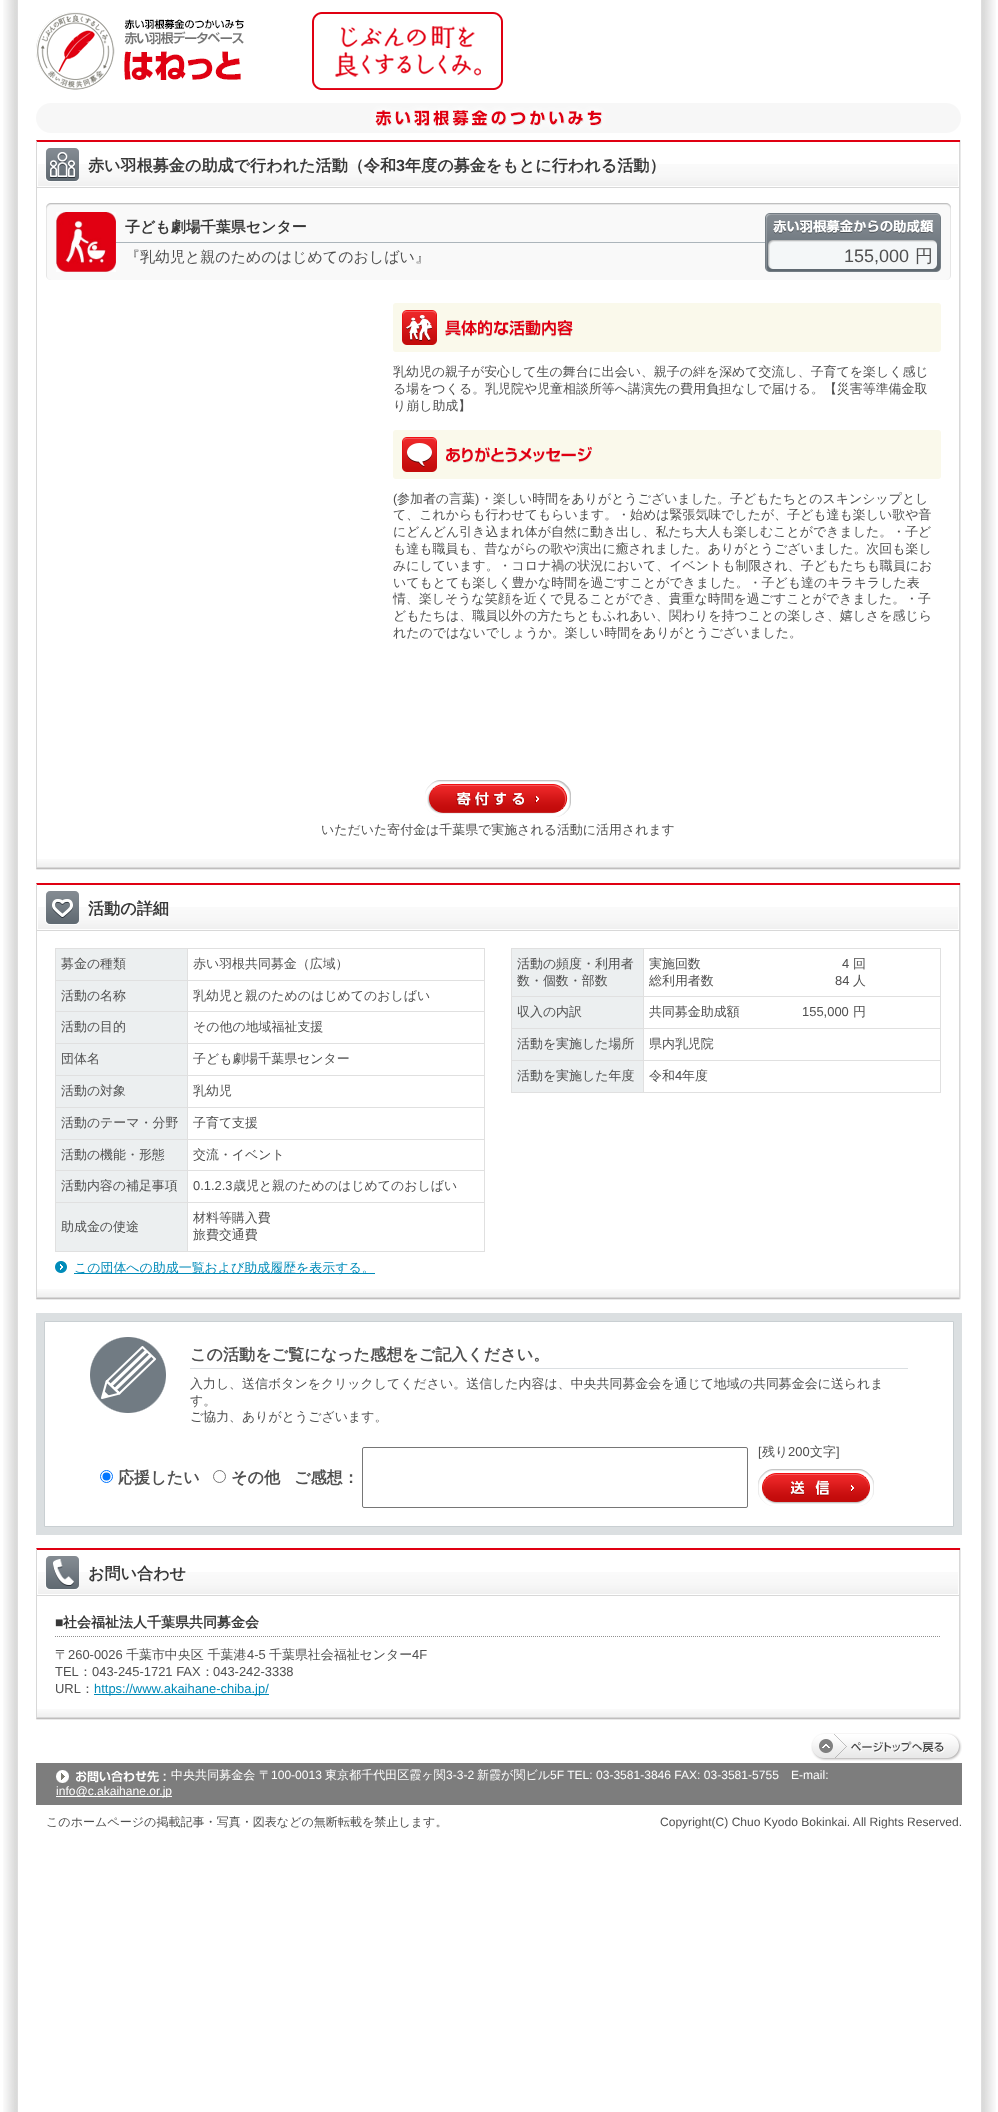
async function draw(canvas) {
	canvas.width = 998;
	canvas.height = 2112;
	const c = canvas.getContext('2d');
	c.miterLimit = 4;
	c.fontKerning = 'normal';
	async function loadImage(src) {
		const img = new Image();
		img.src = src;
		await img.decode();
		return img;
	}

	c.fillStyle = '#fff';
	c.fillRect(0, 0, 998, 2112);
	c.drawImage(await loadImage('img1.png'), 3, 0, 993, 2112);
	c.drawImage(await loadImage('img2.png'), 36, 12, 208, 78);
	c.drawImage(await loadImage('img3.png'), 312, 12, 191, 78);
	c.drawImage(await loadImage('img4.png'), 36, 103, 925, 30);
	c.drawImage(await loadImage('img5.png'), 36, 140, 925, 719);
	c.drawImage(await loadImage('img6.png'), 36, 859, 925, 11);
	c.fillStyle = '#e00012';
	c.beginPath();
	c.moveTo(36, 140);
	c.lineTo(960, 140);
	c.lineTo(960, 142);
	c.lineTo(37, 142);
	c.closePath();
	c.fill();
	c.fillStyle = '#d8d8d8';
	c.fillRect(36, 187, 924, 1);
	c.beginPath();
	c.moveTo(36, 188);
	c.lineTo(36, 140);
	c.lineTo(37, 142);
	c.lineTo(37, 187);
	c.closePath();
	c.fill();
	c.drawImage(await loadImage('img7.png'), 38, 164, 920, 22);
	c.drawImage(await loadImage('img8.png'), 45, 148, 34, 34);
	c.font = 'bold 16.1px WenQuanYi Zen Hei';
	c.fillStyle = '#383838';
	c.fillText('赤い羽根募金の助成で行われた活動（令和', 88, 171);
	c.font = 'bold 16.1px Liberation Sans';
	c.fillText('3', 396, 171);
	c.font = 'bold 16.1px WenQuanYi Zen Hei';
	c.fillText('年度の募金をもとに行われる活動）', 405, 171);
	c.drawImage(await loadImage('img9.png'), 46, 210, 905, 70);
	c.drawImage(await loadImage('img10.png'), 46, 203, 905, 7);
	c.drawImage(await loadImage('img11.png'), 56, 212, 60, 60);
	c.fillStyle = '#acb5bb';
	c.fillRect(116, 242, 649, 1);
	c.font = 'bold 15px WenQuanYi Zen Hei';
	c.fillStyle = '#383838';
	c.fillText('子ども劇場千葉県センター', 125, 232);
	c.font = '500 15px WenQuanYi Zen Hei';
	c.fillStyle = '#505050';
	c.fillText('『乳幼児と親のためのはじめてのおしばい』', 125, 262);
	c.drawImage(await loadImage('img12.png'), 765, 213, 167, 59);
	c.drawImage(await loadImage('img13.png'), 932, 213, 9, 59);
	c.drawImage(await loadImage('img14.png'), 773, 219, 161, 15);
	c.font = '18px Liberation Sans';
	c.fillText('155,000', 844, 262);
	c.font = '500 18px WenQuanYi Zen Hei';
	c.fillText('円', 915, 262);
	c.fillStyle = '#faf9eb';
	c.beginPath();
	c.roundRect(393, 303, 548, 49, 3);
	c.fill();
	c.drawImage(await loadImage('img15.png'), 402, 310, 171, 35);
	c.font = '500 12.95px WenQuanYi Zen Hei';
	c.fillStyle = '#505050';
	for (const [text, x, y] of [
		['乳幼児の親子が安心して生の舞台に出会い、親子の絆を深めて交流し、子育てを楽しく感じ', 393, 376],
		['る場をつくる。乳児院や児童相談所等へ講演先の費用負担なしで届ける。【災害等準備金取', 393, 393],
		['り崩し助成】', 393, 410],
	]) {
		c.fillText(text, x, y);
	}
	c.fillStyle = '#faf9eb';
	c.beginPath();
	c.roundRect(393, 430, 548, 49, 3);
	c.fill();
	c.drawImage(await loadImage('img16.png'), 402, 437, 190, 35);
	c.font = '12.95px Liberation Sans';
	c.fillStyle = '#505050';
	c.fillText('(', 393, 503);
	c.font = '500 12.95px WenQuanYi Zen Hei';
	c.fillText('参加者の言葉', 397, 503);
	c.font = '12.95px Liberation Sans';
	c.fillText(')', 475, 503);
	c.font = '500 12.95px WenQuanYi Zen Hei';
	for (const [text, x, y] of [
		['・楽しい時間をありがとうございました。子どもたちとのスキンシップとし', 480, 503],
		['て、これからも行わせてもらいます。・始めは緊張気味でしたが、子ども達も楽しい歌や音', 393, 519],
		['にどんどん引き込まれ体が自然に動き出し、私たち大人も楽しむことができました。・子ど', 393, 536],
		['も達も職員も、昔ながらの歌や演出に癒されました。ありがとうございました。次回も楽し', 393, 553],
		['みにしています。・コロナ禍の状況において、イベントも制限され、子どもたちも職員にお', 393, 570],
		['いてもとても楽しく豊かな時間を過ごすことができました。・子ども達のキラキラした表', 393, 587],
		['情、楽しそうな笑顔を近くで見ることができ、貴重な時間を過ごすことができました。・子', 393, 603],
		['どもたちは、職員以外の方たちともふれあい、関わりを持つことの楽しさ、嬉しさを感じら', 393, 620],
		['れたのではないでしょうか。楽しい時間をありがとうございました。', 393, 637],
	]) {
		c.fillText(text, x, y);
	}
	c.drawImage(await loadImage('img17.png'), 425, 780, 146, 37);
	c.fillText('いただいた寄付金は千葉県で実施される活動に活用されます', 321, 834);
	c.drawImage(await loadImage('img18.png'), 36, 883, 925, 406);
	c.drawImage(await loadImage('img6.png'), 36, 1289, 925, 11);
	c.fillStyle = '#e00012';
	c.beginPath();
	c.moveTo(36, 883);
	c.lineTo(960, 883);
	c.lineTo(960, 885);
	c.lineTo(37, 885);
	c.closePath();
	c.fill();
	c.fillStyle = '#d8d8d8';
	c.fillRect(36, 930, 924, 1);
	c.beginPath();
	c.moveTo(36, 931);
	c.lineTo(36, 883);
	c.lineTo(37, 885);
	c.lineTo(37, 930);
	c.closePath();
	c.fill();
	c.drawImage(await loadImage('img7.png'), 38, 907, 920, 22);
	c.drawImage(await loadImage('img19.png'), 45, 891, 34, 34);
	c.font = 'bold 16.1px WenQuanYi Zen Hei';
	c.fillStyle = '#383838';
	c.fillText('活動の詳細', 88, 914);
	for (const [x, y, w, h, color] of [
		[55, 948, 430, 1, '#e0e0e0'],
		[484, 948, 1, 304, '#e0e0e0'],
		[55, 1251, 430, 1, '#e0e0e0'],
		[55, 948, 1, 304, '#e0e0e0'],
		[56, 949, 131, 31, '#eceff0'],
		[187, 1202, 1, 50, '#e0e0e0'],
		[187, 1202, 298, 1, '#e0e0e0'],
		[187, 1170, 1, 33, '#e0e0e0'],
		[187, 1170, 298, 1, '#e0e0e0'],
		[187, 1139, 1, 32, '#e0e0e0'],
		[187, 1139, 298, 1, '#e0e0e0'],
		[187, 1107, 1, 33, '#e0e0e0'],
		[187, 1107, 298, 1, '#e0e0e0'],
		[187, 1075, 1, 33, '#e0e0e0'],
		[187, 1075, 298, 1, '#e0e0e0'],
		[187, 1043, 1, 33, '#e0e0e0'],
		[187, 1043, 298, 1, '#e0e0e0'],
		[187, 1011, 1, 33, '#e0e0e0'],
		[187, 1011, 298, 1, '#e0e0e0'],
		[187, 980, 1, 32, '#e0e0e0'],
		[187, 980, 298, 1, '#e0e0e0'],
		[187, 948, 1, 33, '#e0e0e0'],
		[55, 980, 133, 1, '#e0e0e0'],
	]) {
		c.fillStyle = color;
		c.fillRect(x, y, w, h);
	}
	c.font = '500 12.95px WenQuanYi Zen Hei';
	c.fillStyle = '#505050';
	c.fillText('募金の種類', 61, 968);
	c.fillText('赤い羽根共同募金（広域）', 193, 968);
	c.fillStyle = '#eceff0';
	c.fillRect(56, 981, 131, 30);
	c.fillStyle = '#e0e0e0';
	c.fillRect(55, 1011, 133, 1);
	c.fillStyle = '#505050';
	c.fillText('活動の名称', 61, 1000);
	c.fillText('乳幼児と親のためのはじめてのおしばい', 193, 1000);
	c.fillStyle = '#eceff0';
	c.fillRect(56, 1012, 131, 31);
	c.fillStyle = '#e0e0e0';
	c.fillRect(55, 1043, 133, 1);
	c.fillStyle = '#505050';
	c.fillText('活動の目的', 61, 1031);
	c.fillText('その他の地域福祉支援', 193, 1031);
	c.fillStyle = '#eceff0';
	c.fillRect(56, 1044, 131, 31);
	c.fillStyle = '#e0e0e0';
	c.fillRect(55, 1075, 133, 1);
	c.fillStyle = '#505050';
	c.fillText('団体名', 61, 1063);
	c.fillText('子ども劇場千葉県センター', 193, 1063);
	c.fillStyle = '#eceff0';
	c.fillRect(56, 1076, 131, 31);
	c.fillStyle = '#e0e0e0';
	c.fillRect(55, 1107, 133, 1);
	c.fillStyle = '#505050';
	c.fillText('活動の対象', 61, 1095);
	c.fillText('乳幼児', 193, 1095);
	c.fillStyle = '#eceff0';
	c.fillRect(56, 1108, 131, 31);
	c.fillStyle = '#e0e0e0';
	c.fillRect(55, 1139, 133, 1);
	c.fillStyle = '#505050';
	c.fillText('活動のテーマ・分野', 61, 1127);
	c.fillText('子育て支援', 193, 1127);
	c.fillStyle = '#eceff0';
	c.fillRect(56, 1140, 131, 30);
	c.fillStyle = '#e0e0e0';
	c.fillRect(55, 1170, 133, 1);
	c.fillStyle = '#505050';
	c.fillText('活動の機能・形態', 61, 1159);
	c.fillText('交流・イベント', 193, 1159);
	c.fillStyle = '#eceff0';
	c.fillRect(56, 1171, 131, 31);
	c.fillStyle = '#e0e0e0';
	c.fillRect(55, 1202, 133, 1);
	c.fillStyle = '#505050';
	c.fillText('活動内容の補足事項', 61, 1190);
	c.font = '12.95px Liberation Sans';
	c.fillText('0.1.2.3', 193, 1190);
	c.font = '500 12.95px WenQuanYi Zen Hei';
	c.fillText('歳児と親のためのはじめてのおしばい', 233, 1190);
	c.fillStyle = '#eceff0';
	c.fillRect(56, 1203, 131, 48);
	c.fillStyle = '#505050';
	for (const [text, x, y] of [
		['助成金の使途', 61, 1231],
		['材料等購入費', 193, 1222],
		['旅費交通費', 193, 1239],
	]) {
		c.fillText(text, x, y);
	}
	for (const [x, y, w, h, color] of [
		[511, 948, 430, 1, '#e0e0e0'],
		[940, 948, 1, 145, '#e0e0e0'],
		[511, 1092, 430, 1, '#e0e0e0'],
		[511, 948, 1, 145, '#e0e0e0'],
		[512, 949, 131, 47, '#eceff0'],
		[643, 1060, 1, 33, '#e0e0e0'],
		[643, 1060, 298, 1, '#e0e0e0'],
		[643, 1028, 1, 33, '#e0e0e0'],
		[643, 1028, 298, 1, '#e0e0e0'],
		[643, 996, 1, 33, '#e0e0e0'],
		[643, 996, 298, 1, '#e0e0e0'],
		[643, 948, 1, 49, '#e0e0e0'],
		[511, 996, 133, 1, '#e0e0e0'],
	]) {
		c.fillStyle = color;
		c.fillRect(x, y, w, h);
	}
	c.fillStyle = '#505050';
	for (const [text, x, y] of [
		['活動の頻度・利用者', 517, 968],
		['数・個数・部数', 517, 985],
		['実施回数', 649, 968],
	]) {
		c.fillText(text, x, y);
	}
	c.font = '12.95px Liberation Sans';
	c.fillText('4', 842, 968);
	c.font = '500 12.95px WenQuanYi Zen Hei';
	c.fillText('回', 853, 968);
	c.fillText('総利用者数', 649, 985);
	c.font = '12.95px Liberation Sans';
	c.fillText('84', 835, 985);
	c.font = '500 12.95px WenQuanYi Zen Hei';
	c.fillText('人', 853, 985);
	c.fillStyle = '#eceff0';
	c.fillRect(512, 997, 131, 31);
	c.fillStyle = '#e0e0e0';
	c.fillRect(511, 1028, 133, 1);
	c.fillStyle = '#505050';
	c.fillText('収入の内訳', 517, 1016);
	c.fillText('共同募金助成額', 649, 1016);
	c.font = '12.95px Liberation Sans';
	c.fillText('155,000', 802, 1016);
	c.font = '500 12.95px WenQuanYi Zen Hei';
	c.fillText('円', 853, 1016);
	c.fillStyle = '#eceff0';
	c.fillRect(512, 1029, 131, 31);
	c.fillStyle = '#e0e0e0';
	c.fillRect(511, 1060, 133, 1);
	c.fillStyle = '#505050';
	c.fillText('活動を実施した場所', 517, 1048);
	c.fillText('県内乳児院', 649, 1048);
	c.fillStyle = '#eceff0';
	c.fillRect(512, 1061, 131, 31);
	c.fillStyle = '#505050';
	c.fillText('活動を実施した年度', 517, 1080);
	c.fillText('令和', 649, 1080);
	c.font = '12.95px Liberation Sans';
	c.fillText('4', 675, 1080);
	c.font = '500 12.95px WenQuanYi Zen Hei';
	c.fillText('年度', 682, 1080);
	c.drawImage(await loadImage('img20.png'), 55, 1261, 12, 12);
	c.fillStyle = '#008bb9';
	c.fillRect(74, 1273, 301, 1);
	c.fillText('この団体への助成一覧および助成履歴を表示する。', 74, 1272);
	c.fillStyle = '#dbdfe1';
	c.fillRect(36, 1313, 926, 222);
	c.fillStyle = '#fff';
	c.beginPath();
	c.rect(44.5, 1321.5, 909, 205);
	c.fill();
	c.strokeStyle = '#c9cfd2';
	c.stroke();
	c.drawImage(await loadImage('img21.png'), 90, 1337, 76, 76);
	c.fillStyle = '#dbdfe2';
	c.fillRect(190, 1368, 718, 1);
	c.font = 'bold 16.1px WenQuanYi Zen Hei';
	c.fillStyle = '#505050';
	c.fillText('この活動をご覧になった感想をご記入ください。', 190, 1360);
	c.font = '500 12.95px WenQuanYi Zen Hei';
	for (const [text, x, y] of [
		['入力し、送信ボタンをクリックしてください。送信した内容は、中央共同募金会を通じて地域の共同募金会に送られま', 190, 1388],
		['す。', 190, 1405],
		['ご協力、ありがとうございます。', 190, 1421],
	]) {
		c.fillText(text, x, y);
	}
	c.beginPath();
	c.arc(106.5, 1476.5, 6, 0, 2 * Math.PI);
	c.strokeStyle = '#0075ff';
	c.stroke();
	c.fillStyle = '#0075ff';
	c.beginPath();
	c.arc(106.5, 1476.5, 4, 0, 2 * Math.PI);
	c.fill();
	c.font = 'bold 16.1px WenQuanYi Zen Hei';
	c.fillStyle = '#505050';
	c.fillText('応援したい', 118, 1483);
	c.beginPath();
	c.arc(219.5, 1476.5, 6, 0, 2 * Math.PI);
	c.strokeStyle = '#767676';
	c.stroke();
	c.fillText('その他', 231, 1483);
	c.fillText('ご感想：', 294, 1483);
	c.beginPath();
	c.roundRect(362.5, 1447.5, 385, 60, 1.5);
	c.stroke();
	c.font = '12.95px Liberation Sans';
	c.fillText('[', 758, 1456);
	c.font = '500 12.95px WenQuanYi Zen Hei';
	c.fillText('残り', 762, 1456);
	c.font = '12.95px Liberation Sans';
	c.fillText('200', 788, 1456);
	c.font = '500 12.95px WenQuanYi Zen Hei';
	c.fillText('文字', 810, 1456);
	c.font = '12.95px Liberation Sans';
	c.fillText(']', 836, 1456);
	c.drawImage(await loadImage('img22.png'), 758, 1469, 116, 37);
	c.drawImage(await loadImage('img23.png'), 36, 1548, 925, 161);
	c.drawImage(await loadImage('img6.png'), 36, 1709, 925, 11);
	c.fillStyle = '#e00012';
	c.beginPath();
	c.moveTo(36, 1548);
	c.lineTo(960, 1548);
	c.lineTo(960, 1550);
	c.lineTo(37, 1550);
	c.closePath();
	c.fill();
	c.fillStyle = '#d8d8d8';
	c.fillRect(36, 1595, 924, 1);
	c.beginPath();
	c.moveTo(36, 1596);
	c.lineTo(36, 1548);
	c.lineTo(37, 1550);
	c.lineTo(37, 1595);
	c.closePath();
	c.fill();
	c.drawImage(await loadImage('img7.png'), 38, 1572, 920, 22);
	c.drawImage(await loadImage('img24.png'), 45, 1556, 34, 34);
	c.font = 'bold 16.1px WenQuanYi Zen Hei';
	c.fillStyle = '#383838';
	c.fillText('お問い合わせ', 88, 1579);
	c.beginPath();
	c.moveTo(55, 1636.5);
	c.lineTo(941, 1636.5);
	c.strokeStyle = '#909090';
	c.setLineDash([1, 1]);
	c.stroke();
	c.font = 'bold 14px Liberation Sans';
	c.fillText('■', 55, 1627);
	c.font = 'bold 14px WenQuanYi Zen Hei';
	c.fillText('社会福祉法人千葉県共同募金会', 63, 1627);
	c.font = '500 12.95px WenQuanYi Zen Hei';
	c.fillStyle = '#505050';
	c.fillText('〒', 55, 1659);
	c.font = '12.95px Liberation Sans';
	c.fillText('260-0026', 68, 1659);
	c.font = '500 12.95px WenQuanYi Zen Hei';
	c.fillText('千葉市中央区 千葉港', 126, 1659);
	c.font = '12.95px Liberation Sans';
	c.fillText('4-5', 247, 1659);
	c.font = '500 12.95px WenQuanYi Zen Hei';
	c.fillText('千葉県社会福祉センター', 269, 1659);
	c.font = '12.95px Liberation Sans';
	c.fillText('4F', 412, 1659);
	c.fillText('TEL', 55, 1676);
	c.font = '500 12.95px WenQuanYi Zen Hei';
	c.fillText('：', 79, 1676);
	c.font = '12.95px Liberation Sans';
	c.fillText('043-245-1721 FAX', 92, 1676);
	c.font = '500 12.95px WenQuanYi Zen Hei';
	c.fillText('：', 201, 1676);
	c.font = '12.95px Liberation Sans';
	c.fillText('043-242-3338', 213, 1676);
	c.fillText('URL', 55, 1693);
	c.font = '500 12.95px WenQuanYi Zen Hei';
	c.fillText('：', 81, 1693);
	c.fillStyle = '#008bb9';
	c.fillRect(94, 1694, 175, 1);
	c.font = '12.95px Liberation Sans';
	c.fillText('https://www.akaihane-chiba.jp/', 94, 1693);
	c.drawImage(await loadImage('img25.png'), 811, 1733, 151, 28);
	c.fillStyle = '#7d7d7d';
	c.fillRect(36, 1763, 926, 42);
	c.drawImage(await loadImage('img26.png'), 56, 1770, 110, 13);
	c.font = '500 12.05px WenQuanYi Zen Hei';
	c.fillStyle = '#fff';
	c.fillText('中央共同募金会 〒', 171, 1779);
	c.font = '12.05px Liberation Sans';
	c.fillText('100-0013', 271, 1779);
	c.font = '500 12.05px WenQuanYi Zen Hei';
	c.fillText('東京都千代田区霞ヶ関', 325, 1779);
	c.font = '12.05px Liberation Sans';
	c.fillText('3-3-2', 446, 1779);
	c.font = '500 12.05px WenQuanYi Zen Hei';
	c.fillText('新霞が関ビル', 477, 1779);
	c.font = '12.05px Liberation Sans';
	c.fillText('5F TEL: 03-3581-3846 FAX: 03-3581-5755', 550, 1779);
	c.fillText('E-mail:', 791, 1779);
	c.fillRect(56, 1796, 116, 1);
	c.fillText('info@c.akaihane.or.jp', 56, 1795);
	c.font = '500 12.05px WenQuanYi Zen Hei';
	c.fillStyle = '#505050';
	c.fillText('このホームページの掲載記事・写真・図表などの無断転載を禁止します。', 46, 1826);
	c.font = '12.05px Liberation Sans';
	c.fillText('Copyright(C) Chuo Kyodo Bokinkai. All Rights Reserved.', 660, 1826);
}

draw(document.querySelector('canvas'));
